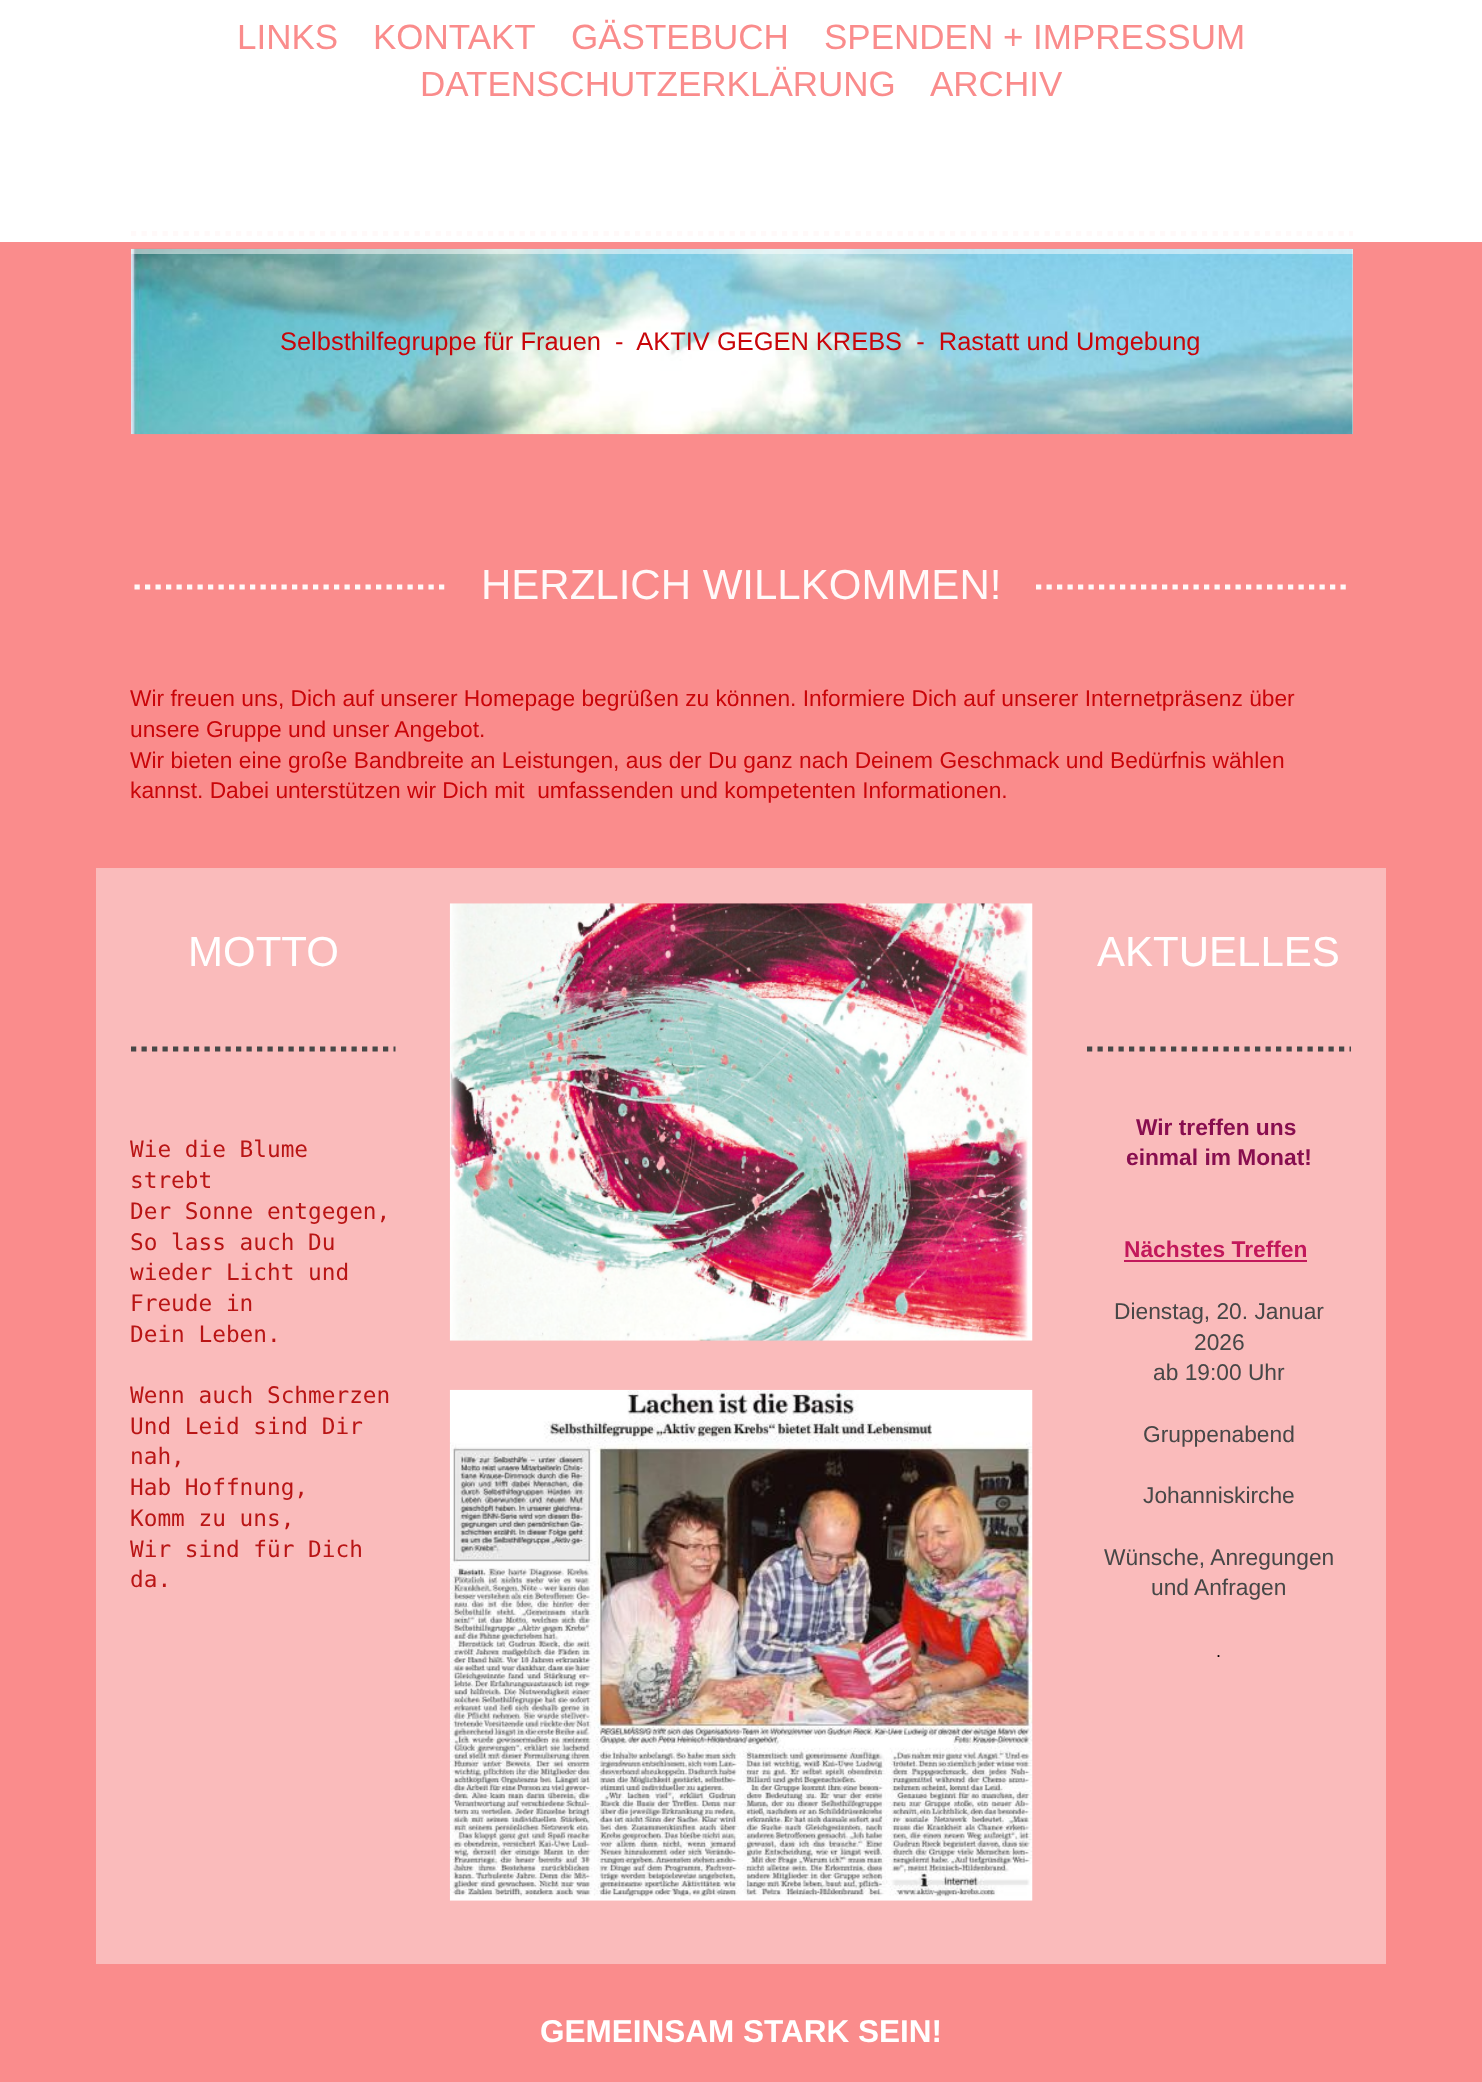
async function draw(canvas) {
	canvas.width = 1482;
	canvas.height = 2082;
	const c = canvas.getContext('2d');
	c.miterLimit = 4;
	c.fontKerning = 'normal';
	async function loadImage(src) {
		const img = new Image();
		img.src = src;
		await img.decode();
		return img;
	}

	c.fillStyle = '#fa8c8c';
	c.fillRect(0, 0, 1482, 2082);
	c.fillStyle = '#fff';
	c.fillRect(0, 0, 1482, 242);
	c.font = '35px Liberation Sans';
	c.fillStyle = '#fa8c8c';
	for (const [text, x, y] of [
		['LINKS', 237, 49],
		['KONTAKT', 373, 49],
		['GÄSTEBUCH', 571, 49],
		['SPENDEN + IMPRESSUM', 824, 49],
		['DATENSCHUTZERKLÄRUNG', 420, 96],
		['ARCHIV', 930, 96],
	]) {
		c.fillText(text, x, y);
	}
	c.beginPath();
	c.moveTo(131, 233.5);
	c.lineTo(1353, 233.5);
	c.strokeStyle = '#fff9f9';
	c.lineWidth = 5.2;
	c.setLineDash([5.25, 5.25]);
	c.stroke();
	c.fillStyle = '#eee';
	c.fillRect(131, 249, 1222, 185);
	c.drawImage(await loadImage('img1.png'), 131, 248, 1222, 187);
	c.fillStyle = '#ffffff80';
	c.fillRect(131, 249, 1222, 5);
	c.font = '25.45px Liberation Sans';
	c.fillStyle = '#c90509';
	c.fillText('Selbsthilfegruppe für Frauen  -  AKTIV GEGEN KREBS  -  Rastatt und Umgebung', 280, 350);
	c.save();
	c.beginPath();
	c.rect(131, 550, 1220, 71);
	c.clip();
	c.beginPath();
	c.moveTo(-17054, 587);
	c.lineTo(446, 587);
	c.stroke();
	c.restore();
	c.font = '42px Liberation Sans';
	c.fillStyle = '#fff9f9';
	c.fillText('HERZLICH WILLKOMMEN!', 481, 599);
	c.save();
	c.beginPath();
	c.rect(131, 550, 1220, 71);
	c.clip();
	c.beginPath();
	c.moveTo(1036, 587);
	c.lineTo(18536, 587);
	c.stroke();
	c.restore();
	c.font = '22.75px Liberation Sans';
	c.fillStyle = '#c90509';
	for (const [text, x, y] of [
		['Wir freuen uns, Dich auf unserer Homepage begrüßen zu können. Informiere Dich auf unserer Internetpräsenz über', 130, 706],
		['unsere Gruppe und unser Angebot.', 130, 737],
		['Wir bieten eine große Bandbreite an Leistungen, aus der Du ganz nach Deinem Geschmack und Bedürfnis wählen', 130, 768],
		['kannst. Dabei unterstützen wir Dich mit  umfassenden und kompetenten Informationen.', 130, 798],
	]) {
		c.fillText(text, x, y);
	}
	c.fillStyle = '#fabbbb';
	c.fillRect(96, 868, 1290, 1096);
	c.font = '42px Liberation Sans';
	c.fillStyle = '#fff';
	c.fillText('MOTTO', 188, 966);
	c.beginPath();
	c.moveTo(131, 1049);
	c.lineTo(395.5, 1049);
	c.strokeStyle = '#474747';
	c.stroke();
	c.font = '22.75px DejaVu Sans Mono';
	c.fillStyle = '#b91515';
	for (const [text, x, y] of [
		['Wie die Blume', 130, 1157],
		['strebt', 130, 1188],
		['Der Sonne entgegen,', 130, 1219],
		['So lass auch Du', 130, 1250],
		['wieder Licht und', 130, 1280],
		['Freude in', 130, 1311],
		['Dein Leben.', 130, 1342],
		['Wenn auch Schmerzen', 130, 1403],
		['Und Leid sind Dir', 130, 1434],
		['nah,', 130, 1464],
		['Hab Hoffnung,', 130, 1495],
		['Komm zu uns,', 130, 1526],
		['Wir sind für Dich', 130, 1557],
		['da.', 130, 1587],
	]) {
		c.fillText(text, x, y);
	}
	c.drawImage(await loadImage('img2.png'), 449, 903, 584, 438);
	c.drawImage(await loadImage('img3.png'), 449, 1389, 584, 512);
	c.font = '42px Liberation Sans';
	c.fillStyle = '#fff';
	c.fillText('AKTUELLES', 1097, 966);
	c.beginPath();
	c.moveTo(1087, 1049);
	c.lineTo(1351, 1049);
	c.stroke();
	c.font = 'bold 22.75px Liberation Sans';
	c.fillStyle = '#880e4f';
	c.fillText('Wir treffen uns', 1136, 1135);
	c.fillText('einmal im Monat!', 1126, 1165);
	c.fillStyle = '#c2185b';
	c.fillText('Nächstes Treffen', 1124, 1257);
	c.fillRect(1124, 1260, 183, 2);
	c.font = '22.75px Liberation Sans';
	c.fillStyle = '#474747';
	for (const [text, x, y] of [
		['Dienstag, 20. Januar', 1114, 1319],
		['2026', 1194, 1350],
		['ab 19:00 Uhr', 1153, 1380],
		['Gruppenabend', 1143, 1442],
		['Johanniskirche', 1143, 1503],
		['Wünsche, Anregungen', 1104, 1565],
		['und Anfragen', 1151, 1595],
	]) {
		c.fillText(text, x, y);
	}
	c.font = '18px Liberation Sans';
	c.fillStyle = '#000';
	c.fillText('.', 1216, 1657);
	c.font = 'bold 31.5px Liberation Sans';
	c.fillStyle = '#fff';
	c.fillText('GEMEINSAM STARK SEIN!', 540, 2042);
}

draw(document.querySelector('canvas'));
